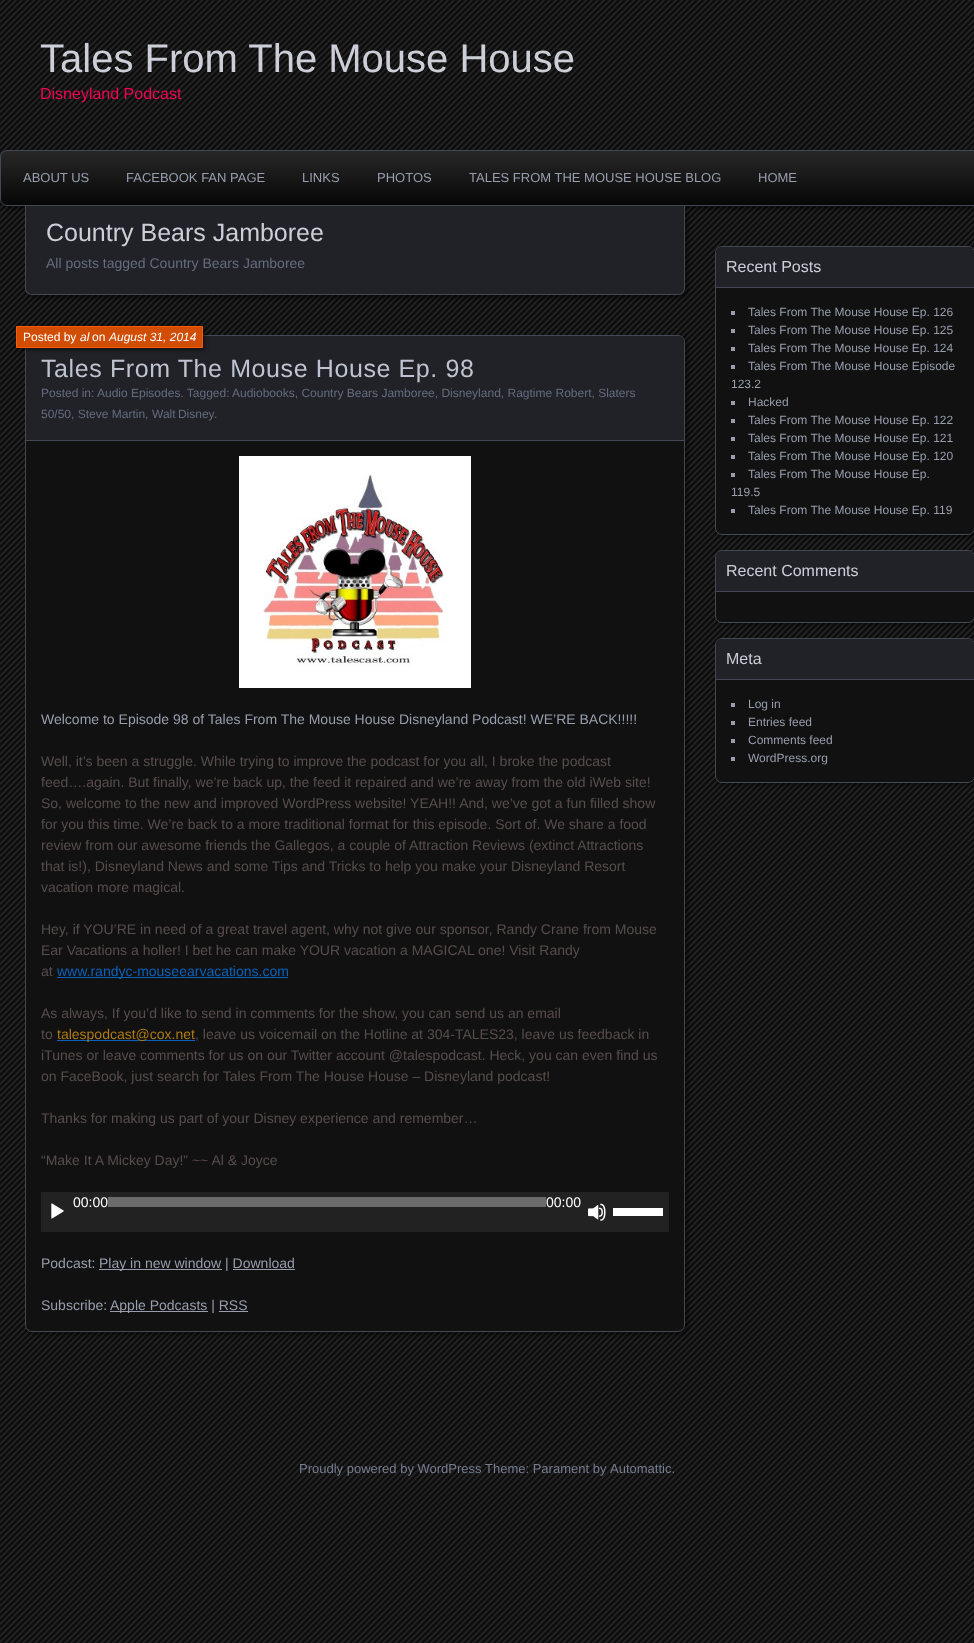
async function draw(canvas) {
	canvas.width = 974;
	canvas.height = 1643;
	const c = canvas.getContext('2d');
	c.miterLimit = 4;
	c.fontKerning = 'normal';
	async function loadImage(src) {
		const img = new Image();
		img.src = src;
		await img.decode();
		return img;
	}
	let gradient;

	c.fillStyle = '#0a0a0a';
	c.fillRect(0, 0, 974, 1643);
	c.drawImage(await loadImage('img1.png'), 0, 0, 974, 1643);
	c.font = '40px Liberation Sans';
	c.fillStyle = '#cccfd7';
	c.fillText('Tales From The Mouse House', 40, 72);
	c.font = '16px Liberation Sans';
	c.fillStyle = '#f20252';
	c.fillText('Disneyland Podcast', 40, 99);
	c.fillStyle = '#00000073';
	c.filter = 'blur(2px)';
	c.beginPath();
	c.roundRect(3, 153, 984, 56, 7);
	c.fill();
	c.filter = 'none';
	c.save();
	c.beginPath();
	c.roundRect(0, 150, 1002, 56, 7);
	c.clip();
	gradient = c.createLinearGradient(501, 151, 501, 205);
	gradient.addColorStop(0.01, '#272727');
	gradient.addColorStop(1, '#070707');
	c.fillStyle = gradient;
	c.fillRect(0, 151, 974, 54);
	c.restore();
	c.beginPath();
	c.roundRect(0.5, 150.5, 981, 55, 6.5);
	c.strokeStyle = '#444855';
	c.stroke();
	c.font = '13px Liberation Sans';
	c.fillStyle = '#989eae';
	for (const [text, x, y] of [
		['ABOUT US', 23, 182],
		['FACEBOOK FAN PAGE', 126, 182],
		['LINKS', 302, 182],
		['PHOTOS', 377, 182],
		['TALES FROM THE MOUSE HOUSE BLOG', 469, 182],
		['HOME', 758, 182],
	]) {
		c.fillText(text, x, y);
	}
	c.fillStyle = '#00000073';
	c.filter = 'blur(2px)';
	c.beginPath();
	c.roundRect(28, 209, 660, 89, 7);
	c.fill();
	c.filter = 'none';
	c.fillStyle = '#202228';
	c.beginPath();
	c.roundRect(26, 206, 658, 88, [0, 0, 6, 6]);
	c.fill();
	c.fillStyle = '#444855';
	c.beginPath();
	c.moveTo(25, 206);
	c.lineTo(685, 206);
	c.lineTo(685, 288);
	c.bezierCurveTo(685, 292, 682, 295, 678, 295);
	c.lineTo(32, 295);
	c.bezierCurveTo(28, 295, 25, 292, 25, 288);
	c.closePath();
	c.moveTo(26, 206);
	c.lineTo(684, 206);
	c.lineTo(684, 288);
	c.bezierCurveTo(684, 291, 681, 294, 678, 294);
	c.lineTo(32, 294);
	c.bezierCurveTo(29, 294, 26, 291, 26, 288);
	c.closePath();
	c.fill('evenodd');
	c.font = '25px Liberation Sans';
	c.fillStyle = '#cccfd7';
	c.fillText('Country Bears Jamboree', 46, 241);
	c.font = '14px Liberation Sans';
	c.fillStyle = '#666c7f';
	c.fillText('All posts tagged Country Bears Jamboree', 46, 268);
	c.fillStyle = '#00000073';
	c.filter = 'blur(2px)';
	c.beginPath();
	c.roundRect(28, 338, 660, 997, 7);
	c.fill();
	c.filter = 'none';
	c.fillStyle = '#111';
	c.beginPath();
	c.roundRect(25.5, 335.5, 659, 996, 6.5);
	c.fill();
	c.stroke();
	c.fillStyle = '#202228';
	c.beginPath();
	c.roundRect(26, 336, 658, 105, [7, 7, 0, 0]);
	c.fill();
	c.fillStyle = '#444855';
	c.fillRect(26, 440, 658, 1);
	c.fillStyle = '#00000073';
	c.filter = 'blur(2px)';
	c.beginPath();
	c.rect(18, 328, 187, 22);
	c.fill();
	c.filter = 'none';
	c.fillStyle = '#d24d04';
	c.beginPath();
	c.rect(16.5, 326.5, 186, 21);
	c.fill();
	c.strokeStyle = '#ff5a00';
	c.stroke();
	c.font = '12px Liberation Sans';
	c.fillStyle = '#fff';
	c.fillText('Posted by', 23, 341);
	c.font = 'italic 12px Liberation Sans';
	c.fillText('al', 80, 341);
	c.font = '12px Liberation Sans';
	c.fillText('on', 92, 341);
	c.font = 'italic 12px Liberation Sans';
	c.fillText('August 31, 2014', 109, 341);
	c.letterSpacing = '0.6px';
	c.font = '25px Liberation Sans';
	c.fillStyle = '#bfc3cf';
	c.fillText('Tales From The Mouse House Ep. 98', 41, 377);
	c.letterSpacing = '0px';
	c.font = '12px Liberation Sans';
	c.fillStyle = '#666c7f';
	for (const [text, x, y] of [
		['Posted in:', 41, 397],
		['Audio Episodes. Tagged:', 97, 397],
		['Audiobooks, Country Bears Jamboree, Disneyland, Ragtime Robert, Slaters', 232, 397],
		['50/50, Steve Martin,', 41, 418],
	]) {
		c.fillText(text, x, y);
	}
	c.wordSpacing = '-1px';
	c.fillText('Walt Disney', 152, 418);
	c.wordSpacing = '0px';
	c.fillText('.', 214, 418);
	c.drawImage(await loadImage('img2.png'), 239, 456, 232, 232);
	c.font = '14px Liberation Sans';
	c.fillStyle = '#989eae';
	c.fillText('Welcome to Episode 98 of Tales From The Mouse House Disneyland Podcast! WE’RE BACK!!!!!', 41, 724);
	c.fillStyle = '#584d4d';
	for (const [text, x, y] of [
		['Well, it’s been a struggle. While trying to improve the podcast for you all, I broke the podcast', 41, 766],
		['feed….again. But finally, we’re back up, the feed it repaired and we’re away from the old iWeb site!', 41, 787],
		['So, welcome to the new and improved WordPress website! YEAH!! And, we’ve got a fun filled show', 41, 808],
		['for you this time. We’re back to a more traditional format for this episode. Sort of. We share a food', 41, 829],
		['review from our awesome friends the Gallegos, a couple of Attraction Reviews (extinct Attractions', 41, 850],
		['that is!), Disneyland News and some Tips and Tricks to help you make your Disneyland Resort', 41, 871],
		['vacation more magical.', 41, 892],
		['Hey, if YOU’RE in need of a great travel agent, why not give our sponsor, Randy Crane from Mouse', 41, 934],
		['Ear Vacations a holler! I bet he can make YOUR vacation a MAGICAL one! Visit Randy', 41, 955],
		['at', 41, 976],
	]) {
		c.fillText(text, x, y);
	}
	c.fillStyle = '#0a62bc';
	c.fillRect(57, 977, 231, 1);
	c.fillText('www.randyc-mouseearvacations.com', 57, 976);
	c.fillStyle = '#584d4d';
	c.fillText('As always, If you’d like to send in comments for the show, you can send us an email', 41, 1018);
	c.fillText('to', 41, 1039);
	c.fillStyle = '#0a62bc';
	c.fillRect(57, 1040, 138, 1);
	c.fillStyle = '#ad7b12';
	c.fillText('talespodcast@cox.net', 57, 1039);
	c.fillStyle = '#584d4d';
	for (const [text, x, y] of [
		[', leave us voicemail on the Hotline at 304-TALES23, leave us feedback in', 195, 1039],
		['iTunes or leave comments for us on our Twitter account @talespodcast. Heck, you can even find us', 41, 1060],
		['on FaceBook, just search for Tales From The House House – Disneyland podcast!', 41, 1081],
		['Thanks for making us part of your Disney experience and remember…', 41, 1123],
		['“Make It A Mickey Day!” ~~ Al & Joyce', 41, 1165],
	]) {
		c.fillText(text, x, y);
	}
	c.fillStyle = '#222';
	c.fillRect(41, 1192, 628, 40);
	c.drawImage(await loadImage('img3.png'), 51, 1203, 13, 16);
	c.fillStyle = '#fff';
	c.fillText('00:00', 73, 1207);
	c.fillStyle = '#6b6b6b';
	c.fillRect(108, 1197, 438, 10);
	c.fillStyle = '#fff';
	c.fillText('00:00', 546, 1207);
	c.drawImage(await loadImage('img4.png'), 588, 1203, 18, 18);
	c.fillRect(613, 1208, 50, 8);
	c.fillStyle = '#989eae';
	c.fillText('Podcast:', 41, 1268);
	c.fillRect(99, 1269, 123, 1);
	c.fillText('Play in new window | Download', 99, 1268);
	c.fillRect(233, 1269, 62, 1);
	c.fillText('Subscribe:', 41, 1310);
	c.fillRect(110, 1311, 98, 1);
	c.fillText('Apple Podcasts | RSS', 110, 1310);
	c.fillRect(219, 1311, 29, 1);
	c.fillStyle = '#00000073';
	c.filter = 'blur(2px)';
	c.beginPath();
	c.roundRect(717, 248, 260, 289, 7);
	c.fill();
	c.filter = 'none';
	c.fillStyle = '#111';
	c.beginPath();
	c.roundRect(715.5, 246.5, 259, 288, 6.5);
	c.fill();
	c.strokeStyle = '#444855';
	c.stroke();
	c.fillStyle = '#202228';
	c.beginPath();
	c.roundRect(716, 247, 258, 41, [6, 6, 0, 0]);
	c.fill();
	c.fillStyle = '#444855';
	c.fillRect(716, 287, 258, 1);
	c.font = '16px Liberation Sans';
	c.fillStyle = '#cccfd7';
	c.fillText('Recent Posts', 726, 272);
	c.fillStyle = '#989eae';
	c.fillRect(731, 311, 4, 4);
	c.font = '12px Liberation Sans';
	c.fillText('Tales From The Mouse House Ep. 126', 748, 316);
	c.fillRect(731, 329, 4, 4);
	c.fillText('Tales From The Mouse House Ep. 125', 748, 334);
	c.fillRect(731, 347, 4, 4);
	c.fillText('Tales From The Mouse House Ep. 124', 748, 352);
	c.fillRect(731, 365, 4, 4);
	c.fillText('Tales From The Mouse House Episode', 748, 370);
	c.fillText('123.2', 731, 388);
	c.fillRect(731, 401, 4, 4);
	c.fillText('Hacked', 748, 406);
	c.fillRect(731, 419, 4, 4);
	c.fillText('Tales From The Mouse House Ep. 122', 748, 424);
	c.fillRect(731, 437, 4, 4);
	c.fillText('Tales From The Mouse House Ep. 121', 748, 442);
	c.fillRect(731, 455, 4, 4);
	c.fillText('Tales From The Mouse House Ep. 120', 748, 460);
	c.fillRect(731, 473, 4, 4);
	c.fillText('Tales From The Mouse House Ep.', 748, 478);
	c.fillText('119.5', 731, 496);
	c.fillRect(731, 509, 4, 4);
	c.fillText('Tales From The Mouse House Ep. 119', 748, 514);
	c.fillStyle = '#00000073';
	c.filter = 'blur(2px)';
	c.beginPath();
	c.roundRect(717, 552, 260, 73, 7);
	c.fill();
	c.filter = 'none';
	c.fillStyle = '#111';
	c.beginPath();
	c.roundRect(715.5, 550.5, 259, 72, 6.5);
	c.fill();
	c.stroke();
	c.fillStyle = '#202228';
	c.beginPath();
	c.roundRect(716, 551, 258, 41, [6, 6, 0, 0]);
	c.fill();
	c.fillStyle = '#444855';
	c.fillRect(716, 591, 258, 1);
	c.font = '16px Liberation Sans';
	c.fillStyle = '#cccfd7';
	c.fillText('Recent Comments', 726, 576);
	c.fillStyle = '#00000073';
	c.filter = 'blur(2px)';
	c.beginPath();
	c.roundRect(717, 640, 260, 145, 7);
	c.fill();
	c.filter = 'none';
	c.fillStyle = '#111';
	c.beginPath();
	c.roundRect(715.5, 638.5, 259, 144, 6.5);
	c.fill();
	c.stroke();
	c.fillStyle = '#202228';
	c.beginPath();
	c.roundRect(716, 639, 258, 41, [6, 6, 0, 0]);
	c.fill();
	c.fillStyle = '#444855';
	c.fillRect(716, 679, 258, 1);
	c.fillStyle = '#cccfd7';
	c.fillText('Meta', 726, 664);
	c.fillStyle = '#989eae';
	c.fillRect(731, 703, 4, 4);
	c.font = '12px Liberation Sans';
	c.fillText('Log in', 748, 708);
	c.fillRect(731, 721, 4, 4);
	c.fillText('Entries feed', 748, 726);
	c.fillRect(731, 739, 4, 4);
	c.fillText('Comments feed', 748, 744);
	c.fillRect(731, 757, 4, 4);
	c.fillText('WordPress.org', 748, 762);
	c.font = '13px Liberation Sans';
	c.fillStyle = '#777d92';
	for (const [text, x, y] of [
		['Proudly powered by WordPress', 299, 1473],
		['Theme: Parament by', 485, 1473],
		['Automattic.', 610, 1473],
	]) {
		c.fillText(text, x, y);
	}
}

draw(document.querySelector('canvas'));
